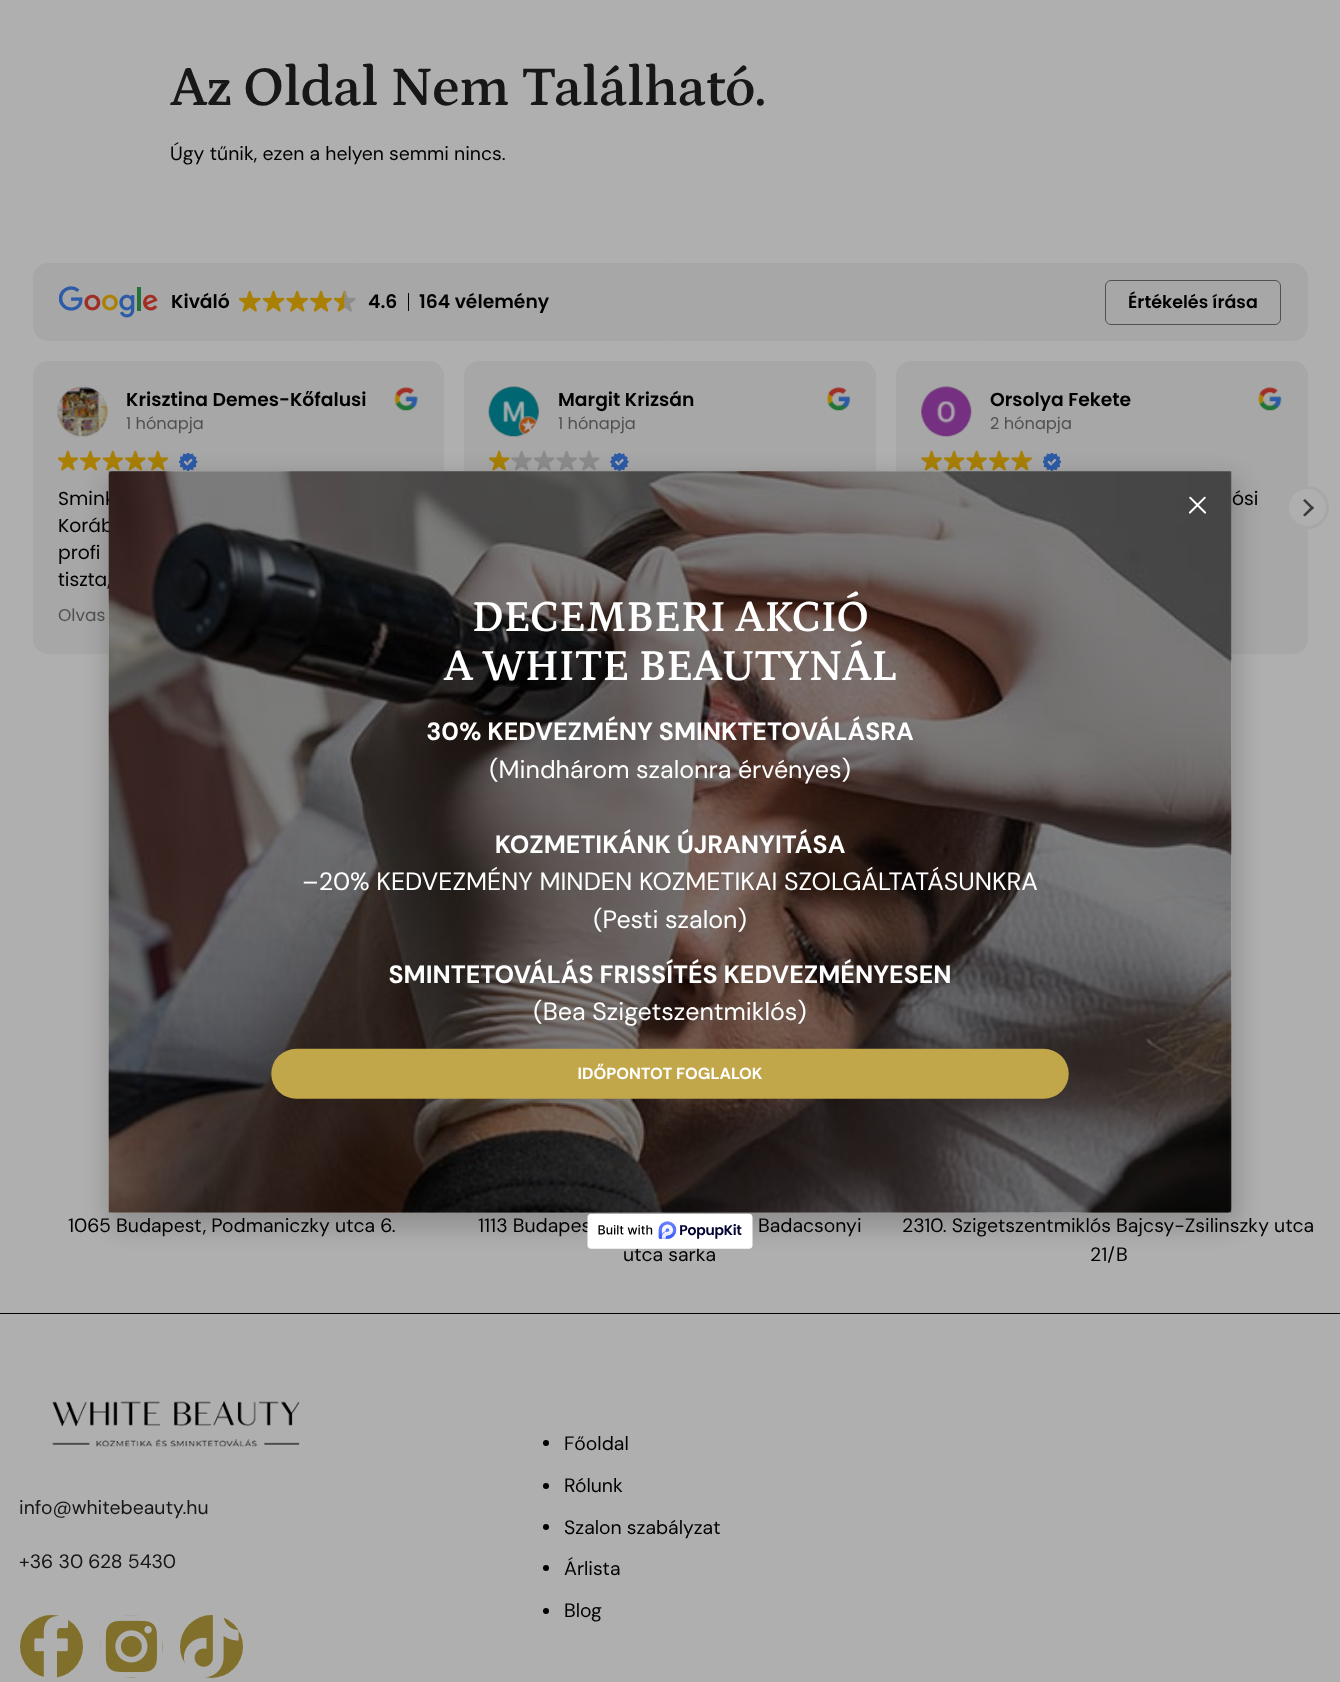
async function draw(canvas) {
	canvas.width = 1340;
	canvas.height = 1682;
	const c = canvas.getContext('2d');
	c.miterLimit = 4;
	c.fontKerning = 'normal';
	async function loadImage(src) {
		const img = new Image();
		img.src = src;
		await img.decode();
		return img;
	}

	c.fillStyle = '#fff';
	c.fillRect(0, 0, 1340, 1682);
	c.letterSpacing = '-0.6px';
	c.font = '600 56.5px Petrona';
	c.fillStyle = '#222';
	c.fillText('Az Oldal Nem Található.', 170, 105);
	c.letterSpacing = '0px';
	c.font = '19.4px DM Sans';
	c.fillStyle = '#000';
	c.fillText('Úgy tűnik, ezen a helyen semmi nincs.', 170, 160);
	c.fillStyle = '#f4f4f4';
	c.beginPath();
	c.roundRect(33.5, 263.5, 1274, 77, 14.5);
	c.fill();
	c.strokeStyle = '#f4f4f4';
	c.stroke();
	c.drawImage(await loadImage('img2.png'), 59, 286, 99, 32);
	c.font = '600 18.75px Poppins';
	c.fillStyle = '#000';
	c.fillText('Kiváló', 171, 308);
	c.drawImage(await loadImage('img3.png'), 239, 290, 22, 22);
	c.drawImage(await loadImage('img4.png'), 263, 290, 22, 22);
	c.drawImage(await loadImage('img5.png'), 286, 290, 23, 22);
	c.drawImage(await loadImage('img6.png'), 310, 290, 22, 22);
	c.drawImage(await loadImage('img7.png'), 334, 290, 22, 22);
	c.fillText('4.6', 368, 308);
	c.fillRect(408, 293, 1, 18);
	c.fillText('164 vélemény', 419, 308);
	c.beginPath();
	c.roundRect(1105.5, 280.5, 175, 44, 5.5);
	c.strokeStyle = '#767676';
	c.stroke();
	c.font = '600 17.5px Poppins';
	c.fillText('Értékelés írása', 1128, 308);
	c.fillStyle = '#f4f4f4';
	c.beginPath();
	c.roundRect(33, 361, 411, 293, 15);
	c.fill();
	c.drawImage(await loadImage('img8.png'), 57, 386, 51, 51);
	c.font = '600 18.75px Poppins';
	c.fillStyle = '#000';
	c.fillText('Krisztina Demes-Kőfalusi', 126, 406);
	c.font = '16.25px Poppins';
	c.fillStyle = '#767676';
	c.fillText('1 hónapja', 126, 429);
	c.drawImage(await loadImage('img9.png'), 394, 387, 24, 24);
	c.drawImage(await loadImage('img10.png'), 58, 450, 21, 21);
	c.drawImage(await loadImage('img11.png'), 80, 450, 21, 21);
	c.drawImage(await loadImage('img10.png'), 103, 450, 21, 21);
	c.drawImage(await loadImage('img11.png'), 125, 450, 21, 21);
	c.drawImage(await loadImage('img10.png'), 148, 450, 21, 21);
	c.drawImage(await loadImage('img12.png'), 179, 453, 19, 18);
	c.font = '18.75px Poppins';
	c.fillStyle = '#000';
	for (const [text, x, y] of [
		['Smink', 58, 505],
		['Koráb', 58, 532],
		['profi', 58, 559],
		['tiszta,', 58, 586],
	]) {
		c.fillText(text, x, y);
	}
	c.font = '17px Poppins';
	c.fillStyle = '#767676';
	c.fillText('Olvas', 58, 621);
	c.fillStyle = '#f4f4f4';
	c.beginPath();
	c.roundRect(464, 361, 412, 293, 15);
	c.fill();
	c.drawImage(await loadImage('img13.png'), 488, 386, 51, 51);
	c.font = '600 18.75px Poppins';
	c.fillStyle = '#000';
	c.fillText('Margit Krizsán', 558, 406);
	c.font = '16.25px Poppins';
	c.fillStyle = '#767676';
	c.fillText('1 hónapja', 558, 429);
	c.drawImage(await loadImage('img14.png'), 826, 387, 24, 24);
	c.drawImage(await loadImage('img15.png'), 489, 450, 21, 21);
	c.drawImage(await loadImage('img16.png'), 511, 450, 21, 21);
	c.drawImage(await loadImage('img17.png'), 534, 450, 21, 21);
	c.drawImage(await loadImage('img16.png'), 556, 450, 21, 21);
	c.drawImage(await loadImage('img17.png'), 579, 450, 21, 21);
	c.drawImage(await loadImage('img18.png'), 610, 453, 19, 18);
	c.fillStyle = '#f4f4f4';
	c.beginPath();
	c.roundRect(896, 361, 412, 293, 15);
	c.fill();
	c.drawImage(await loadImage('img19.png'), 921, 386, 51, 51);
	c.font = '600 18.75px Poppins';
	c.fillStyle = '#000';
	c.fillText('Orsolya Fekete', 990, 406);
	c.font = '16.25px Poppins';
	c.fillStyle = '#767676';
	c.fillText('2 hónapja', 990, 429);
	c.drawImage(await loadImage('img20.png'), 1258, 387, 24, 24);
	c.drawImage(await loadImage('img21.png'), 921, 450, 21, 21);
	c.drawImage(await loadImage('img15.png'), 944, 450, 21, 21);
	c.drawImage(await loadImage('img21.png'), 966, 450, 21, 21);
	c.drawImage(await loadImage('img15.png'), 989, 450, 21, 21);
	c.drawImage(await loadImage('img21.png'), 1011, 450, 21, 21);
	c.drawImage(await loadImage('img22.png'), 1043, 453, 18, 18);
	c.font = '18.75px Poppins';
	c.fillStyle = '#000';
	c.fillText('ósi', 1232, 505);
	c.fillStyle = '#fff';
	c.beginPath();
	c.arc(1307.5, 507.5, 20, 0, 2 * Math.PI);
	c.fill();
	c.strokeStyle = '#f4f4f4';
	c.lineWidth = 3;
	c.stroke();
	c.fillStyle = '#575757';
	c.beginPath();
	c.moveTo(1312, 509.5);
	c.lineTo(1303, 500.5);
	c.lineTo(1305, 499);
	c.lineTo(1314, 508);
	c.closePath();
	c.fill();
	c.beginPath();
	c.moveTo(1305, 516.5);
	c.lineTo(1303, 515);
	c.lineTo(1312, 506);
	c.lineTo(1314, 508);
	c.closePath();
	c.fill();
	c.font = '19.4px DM Sans';
	c.fillStyle = '#000';
	for (const [text, x, y] of [
		['1065 Budapest, Podmaniczky utca 6.', 68, 1232],
		['1113 Budapes', 478, 1232],
		['Badacsonyi', 758, 1232],
		['utca sarka', 623, 1261],
		['2310. Szigetszentmiklós Bajcsy-Zsilinszky utca', 902, 1232],
		['21/B', 1090, 1261],
	]) {
		c.fillText(text, x, y);
	}
	c.fillRect(0, 1313, 1340, 1);
	c.drawImage(await loadImage('img23.png'), 52, 1401, 248, 46);
	c.fillStyle = '#222';
	c.fillText('info@whitebeauty.hu', 19, 1514);
	c.fillText('+36 30 628 5430', 19, 1568);
	c.fillStyle = '#bda240';
	c.beginPath();
	c.arc(51.5, 1646.5, 31.5, 0, 2 * Math.PI);
	c.fill();
	c.drawImage(await loadImage('img24.png'), 34, 1616, 35, 62);
	c.beginPath();
	c.arc(131.5, 1646.5, 31.5, 0, 2 * Math.PI);
	c.fill();
	c.drawImage(await loadImage('img25.png'), 100, 1615, 63, 63);
	c.beginPath();
	c.arc(211.5, 1646.5, 31.5, 0, 2 * Math.PI);
	c.fill();
	c.drawImage(await loadImage('img26.png'), 183, 1615, 56, 63);
	c.fillStyle = '#000';
	c.beginPath();
	c.arc(546, 1443, 3, 0, 2 * Math.PI);
	c.fill();
	c.fillText('Főoldal', 564, 1450);
	c.beginPath();
	c.arc(546, 1486, 3, 0, 2 * Math.PI);
	c.fill();
	c.fillText('Rólunk', 564, 1492);
	c.beginPath();
	c.arc(546, 1527, 3, 0, 2 * Math.PI);
	c.fill();
	c.fillText('Szalon szabályzat', 564, 1534);
	c.beginPath();
	c.arc(546, 1568, 3, 0, 2 * Math.PI);
	c.fill();
	c.fillText('Árlista', 564, 1575);
	c.beginPath();
	c.arc(546, 1611, 3, 0, 2 * Math.PI);
	c.fill();
	c.fillText('Blog', 564, 1617);
	c.drawImage(await loadImage('img1.png'), 0, 0, 1340, 1682);
}

draw(document.querySelector('canvas'));
